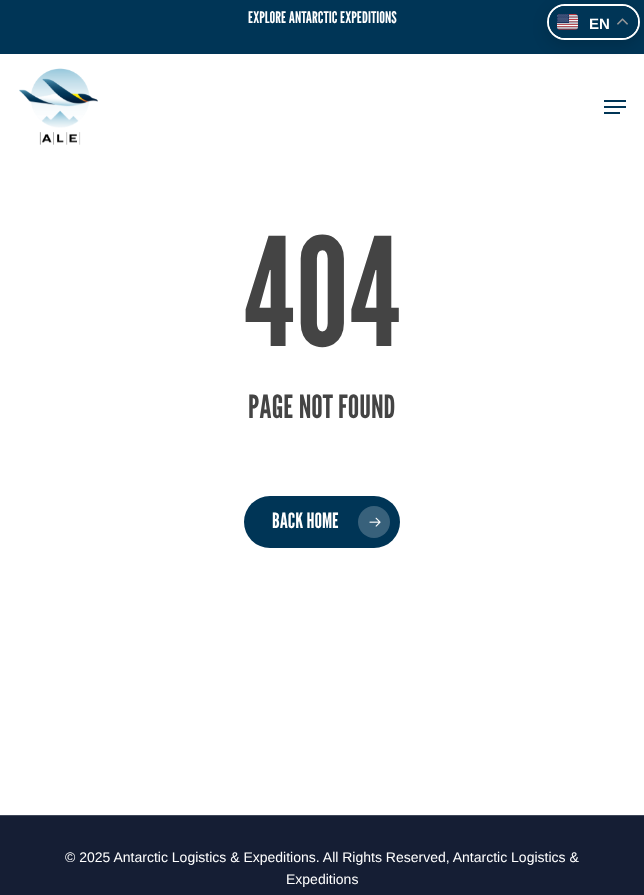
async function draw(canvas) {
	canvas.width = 644;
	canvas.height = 895;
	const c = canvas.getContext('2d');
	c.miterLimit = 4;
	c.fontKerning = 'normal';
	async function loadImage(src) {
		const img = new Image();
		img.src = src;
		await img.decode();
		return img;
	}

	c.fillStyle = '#fff';
	c.fillRect(0, 0, 644, 895);
	c.fillStyle = '#003556';
	c.fillRect(0, 0, 644, 54);
	c.font = '16px League Gothic';
	c.fillStyle = '#fff';
	c.fillText('EXPLORE ANTARCTIC EXPEDITIONS', 248, 23);
	c.drawImage(await loadImage('img1.png'), 19, 68, 79, 77);
	for (const [x, y, w, h, color] of [
		[604, 100, 22, 2, '#003556'],
		[604, 112, 16, 2, '#003556'],
		[604, 106, 22, 2, '#003556'],
	]) {
		c.fillStyle = color;
		c.fillRect(x, y, w, h);
	}
	c.font = '150px League Gothic';
	c.fillStyle = '#444';
	c.fillText('404', 243, 346);
	c.font = '32px League Gothic';
	c.fillText('PAGE NOT FOUND', 248, 418);
	c.fillStyle = '#003556';
	c.beginPath();
	c.roundRect(244, 496, 156, 52, 26);
	c.fill();
	c.font = '21px League Gothic';
	c.fillStyle = '#fff';
	c.fillText('BACK HOME', 272, 528);
	c.fillStyle = '#38617b';
	c.beginPath();
	c.arc(374, 522, 16, 0, 2 * Math.PI);
	c.fill();
	c.drawImage(await loadImage('img2.png'), 369, 517, 12, 10);
	c.fillStyle = '#151e34';
	c.fillRect(0, 816, 644, 79);
	c.fillStyle = '#3f4759';
	c.fillRect(0, 815, 644, 1);
	c.font = '14px Liberation Sans';
	c.fillStyle = '#fff';
	c.fillText('© 2025 Antarctic Logistics & Expeditions. All Rights Reserved, Antarctic Logistics &', 65, 862);
	c.fillText('Expeditions', 286, 884);
	c.fillStyle = '#00000026';
	c.filter = 'blur(7.5px)';
	c.beginPath();
	c.roundRect(547, 9, 93, 36, 18);
	c.fill();
	c.filter = 'none';
	c.beginPath();
	c.roundRect(548, 5, 91, 34, 17);
	c.strokeStyle = '#fff';
	c.lineWidth = 2;
	c.stroke();
	c.fillStyle = '#003556';
	c.beginPath();
	c.roundRect(549, 6, 89, 32, 16);
	c.fill();
	c.drawImage(await loadImage('img3.png'), 557, 14, 21, 16);
	c.font = 'bold 15px Liberation Sans';
	c.fillStyle = '#fff';
	c.fillText('EN', 589, 29);
	c.drawImage(await loadImage('img4.png'), 617, 18, 11, 7);
}

draw(document.querySelector('canvas'));
